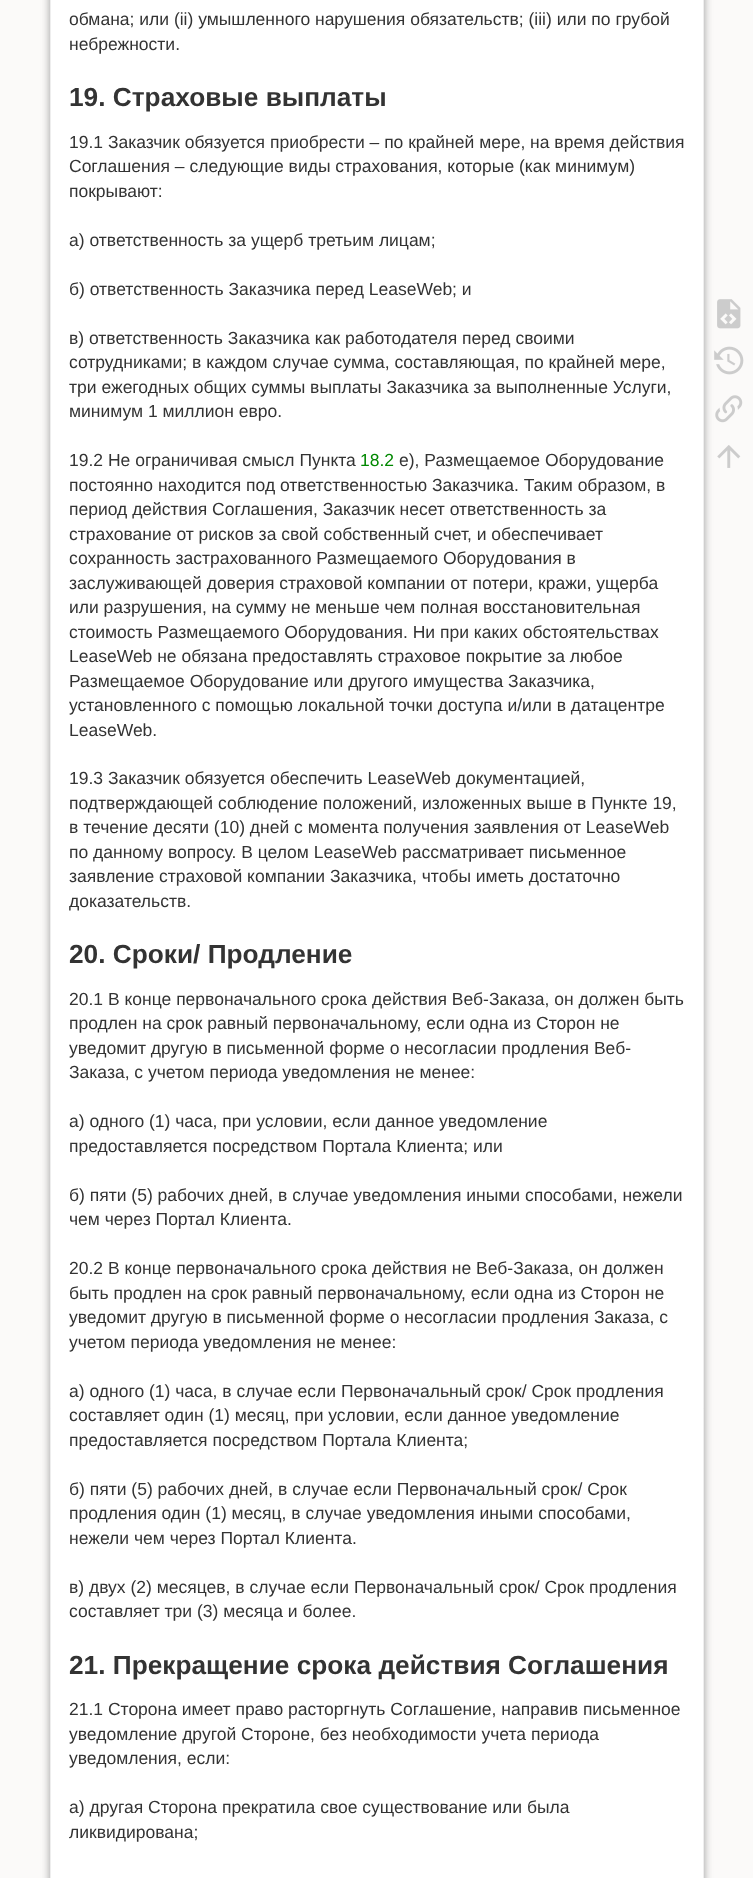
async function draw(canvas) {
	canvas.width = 753;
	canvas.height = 1878;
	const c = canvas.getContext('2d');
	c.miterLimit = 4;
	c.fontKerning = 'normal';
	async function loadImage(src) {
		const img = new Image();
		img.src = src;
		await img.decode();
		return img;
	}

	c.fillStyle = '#fbfaf9';
	c.fillRect(0, 0, 753, 1878);
	c.fillStyle = '#999';
	c.filter = 'blur(4.5px)';
	c.beginPath();
	c.roundRect(50, -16, 654, 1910, 2.5);
	c.fill();
	c.filter = 'none';
	c.fillStyle = '#fff';
	c.beginPath();
	c.rect(50.5, -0.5, 653, 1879);
	c.fill();
	c.strokeStyle = '#eee';
	c.stroke();
	c.font = '17.5px Liberation Sans';
	c.fillStyle = '#333';
	c.fillText('обмана; или (ii) умышленного нарушения обязательств; (iii) или по грубой', 69, 25);
	c.fillText('небрежности.', 69, 50);
	c.font = 'bold 26.25px Liberation Sans';
	c.fillText('19. Страховые выплаты', 69, 106);
	c.font = '17.5px Liberation Sans';
	for (const [text, x, y] of [
		['19.1 Заказчик обязуется приобрести – по крайней мере, на время действия', 69, 148],
		['Соглашения – следующие виды страхования, которые (как минимум)', 69, 172],
		['покрывают:', 69, 197],
		['а) ответственность за ущерб третьим лицам;', 69, 246],
		['б) ответственность Заказчика перед LeaseWeb; и', 69, 295],
		['в) ответственность Заказчика как работодателя перед своими', 69, 344],
		['сотрудниками; в каждом случае сумма, составляющая, по крайней мере,', 69, 368],
		['три ежегодных общих суммы выплаты Заказчика за выполненные Услуги,', 69, 393],
		['минимум 1 миллион евро.', 69, 417],
		['19.2 Не ограничивая смысл Пункта', 69, 466],
	]) {
		c.fillText(text, x, y);
	}
	c.fillStyle = '#080';
	c.fillText('18.2', 360, 466);
	c.fillStyle = '#333';
	for (const [text, x, y] of [
		['е), Размещаемое Оборудование', 399, 466],
		['постоянно находится под ответственностью Заказчика. Таким образом, в', 69, 491],
		['период действия Соглашения, Заказчик несет ответственность за', 69, 515],
		['страхование от рисков за свой собственный счет, и обеспечивает', 69, 540],
		['сохранность застрахованного Размещаемого Оборудования в', 69, 564],
		['заслуживающей доверия страховой компании от потери, кражи, ущерба', 69, 589],
		['или разрушения, на сумму не меньше чем полная восстановительная', 69, 613],
		['стоимость Размещаемого Оборудования. Ни при каких обстоятельствах', 69, 638],
		['LeaseWeb не обязана предоставлять страховое покрытие за любое', 69, 662],
		['Размещаемое Оборудование или другого имущества Заказчика,', 69, 687],
		['установленного с помощью локальной точки доступа и/или в датацентре', 69, 711],
		['LeaseWeb.', 69, 736],
		['19.3 Заказчик обязуется обеспечить LeaseWeb документацией,', 69, 784],
		['подтверждающей соблюдение положений, изложенных выше в Пункте 19,', 69, 809],
		['в течение десяти (10) дней с момента получения заявления от LeaseWeb', 69, 833],
		['по данному вопросу. В целом LeaseWeb рассматривает письменное', 69, 858],
		['заявление страховой компании Заказчика, чтобы иметь достаточно', 69, 882],
		['доказательств.', 69, 907],
	]) {
		c.fillText(text, x, y);
	}
	c.font = 'bold 26.25px Liberation Sans';
	c.fillText('20. Сроки/ Продление', 69, 963);
	c.font = '17.5px Liberation Sans';
	for (const [text, x, y] of [
		['20.1 В конце первоначального срока действия Веб-Заказа, он должен быть', 69, 1005],
		['продлен на срок равный первоначальному, если одна из Сторон не', 69, 1029],
		['уведомит другую в письменной форме о несогласии продления Веб-', 69, 1054],
		['Заказа, с учетом периода уведомления не менее:', 69, 1078],
		['а) одного (1) часа, при условии, если данное уведомление', 69, 1127],
		['предоставляется посредством Портала Клиента; или', 69, 1152],
		['б) пяти (5) рабочих дней, в случае уведомления иными способами, нежели', 69, 1201],
		['чем через Портал Клиента.', 69, 1225],
		['20.2 В конце первоначального срока действия не Веб-Заказа, он должен', 69, 1274],
		['быть продлен на срок равный первоначальному, если одна из Сторон не', 69, 1299],
		['уведомит другую в письменной форме о несогласии продления Заказа, с', 69, 1323],
		['учетом периода уведомления не менее:', 69, 1348],
		['а) одного (1) часа, в случае если Первоначальный срок/ Срок продления', 69, 1397],
		['составляет один (1) месяц, при условии, если данное уведомление', 69, 1421],
		['предоставляется посредством Портала Клиента;', 69, 1446],
		['б) пяти (5) рабочих дней, в случае если Первоначальный срок/ Срок', 69, 1495],
		['продления один (1) месяц, в случае уведомления иными способами,', 69, 1519],
		['нежели чем через Портал Клиента.', 69, 1544],
		['в) двух (2) месяцев, в случае если Первоначальный срок/ Срок продления', 69, 1593],
		['составляет три (3) месяца и более.', 69, 1617],
	]) {
		c.fillText(text, x, y);
	}
	c.font = 'bold 26.25px Liberation Sans';
	c.fillText('21. Прекращение срока действия Соглашения', 69, 1674);
	c.font = '17.5px Liberation Sans';
	for (const [text, x, y] of [
		['21.1 Сторона имеет право расторгнуть Соглашение, направив письменное', 69, 1715],
		['уведомление другой Стороне, без необходимости учета периода', 69, 1740],
		['уведомления, если:', 69, 1764],
		['а) другая Сторона прекратила свое существование или была', 69, 1813],
		['ликвидирована;', 69, 1838],
	]) {
		c.fillText(text, x, y);
	}
	c.drawImage(await loadImage('img1.png'), 717, 299, 24, 30);
	c.drawImage(await loadImage('img2.png'), 714, 346, 30, 29);
	c.drawImage(await loadImage('img3.png'), 715, 395, 28, 28);
	c.drawImage(await loadImage('img4.png'), 717, 445, 24, 23);
}

draw(document.querySelector('canvas'));
